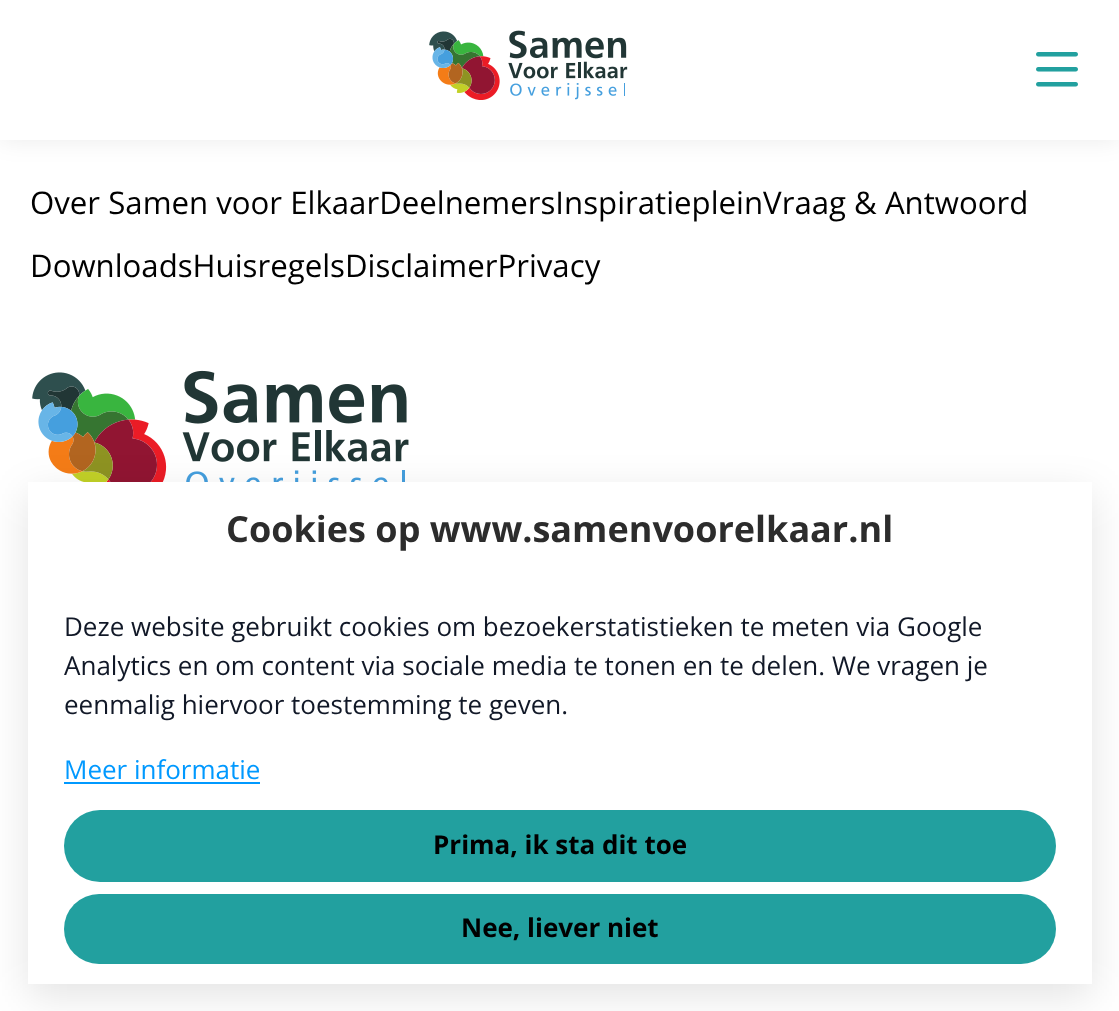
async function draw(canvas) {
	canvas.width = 1119;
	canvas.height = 1011;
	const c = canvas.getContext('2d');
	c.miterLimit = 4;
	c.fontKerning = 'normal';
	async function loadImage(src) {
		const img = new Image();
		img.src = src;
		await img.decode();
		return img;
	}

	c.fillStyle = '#fff';
	c.fillRect(0, 0, 1119, 1011);
	c.fillStyle = '#00000014';
	c.filter = 'blur(12px)';
	c.beginPath();
	c.rect(0, 0, 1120, 140);
	c.fill();
	c.filter = 'none';
	c.fillStyle = '#fff';
	c.fillRect(0, 0, 1119, 140);
	c.drawImage(await loadImage('img1.png'), 429, 30, 199, 70);
	c.drawImage(await loadImage('img2.png'), 1036, 52, 42, 35);
	c.font = '31.2px Open Sans';
	c.fillStyle = '#000';
	c.fillText('Over Samen voor ElkaarDeelnemersInspiratiepleinVraag & Antwoord', 30, 214);
	c.fillText('DownloadsHuisregelsDisclaimerPrivacy', 30, 277);
	c.drawImage(await loadImage('img3.png'), 32, 370, 377, 112);
	c.fillStyle = '#0000001c';
	c.filter = 'blur(20px)';
	c.beginPath();
	c.rect(28, 494, 1064, 502);
	c.fill();
	c.filter = 'none';
	c.fillStyle = '#fff';
	c.fillRect(28, 482, 1064, 502);
	c.font = 'bold 36px Open Sans';
	c.fillStyle = '#2c2c2c';
	c.fillText('Cookies op www.samenvoorelkaar.nl', 226, 542);
	c.font = '26px Open Sans';
	c.fillStyle = '#111827';
	for (const [text, x, y] of [
		['Deze website gebruikt cookies om bezoekerstatistieken te meten via Google', 64, 636],
		['Analytics en om content via sociale media te tonen en te delen. We vragen je', 64, 675],
		['eenmalig hiervoor toestemming te geven.', 64, 714],
	]) {
		c.fillText(text, x, y);
	}
	c.fillStyle = '#09f';
	c.fillText('Meer informatie', 64, 779);
	c.fillRect(64, 782, 196, 2);
	c.fillStyle = '#22a09f';
	c.beginPath();
	c.roundRect(64, 810, 992, 72, 36);
	c.fill();
	c.font = 'bold 26px Open Sans';
	c.fillStyle = '#000';
	c.fillText('Prima, ik sta dit toe', 433, 854);
	c.fillStyle = '#22a09f';
	c.beginPath();
	c.roundRect(64, 894, 992, 70, 35);
	c.fill();
	c.fillStyle = '#000';
	c.fillText('Nee, liever niet', 461, 937);
}

draw(document.querySelector('canvas'));
